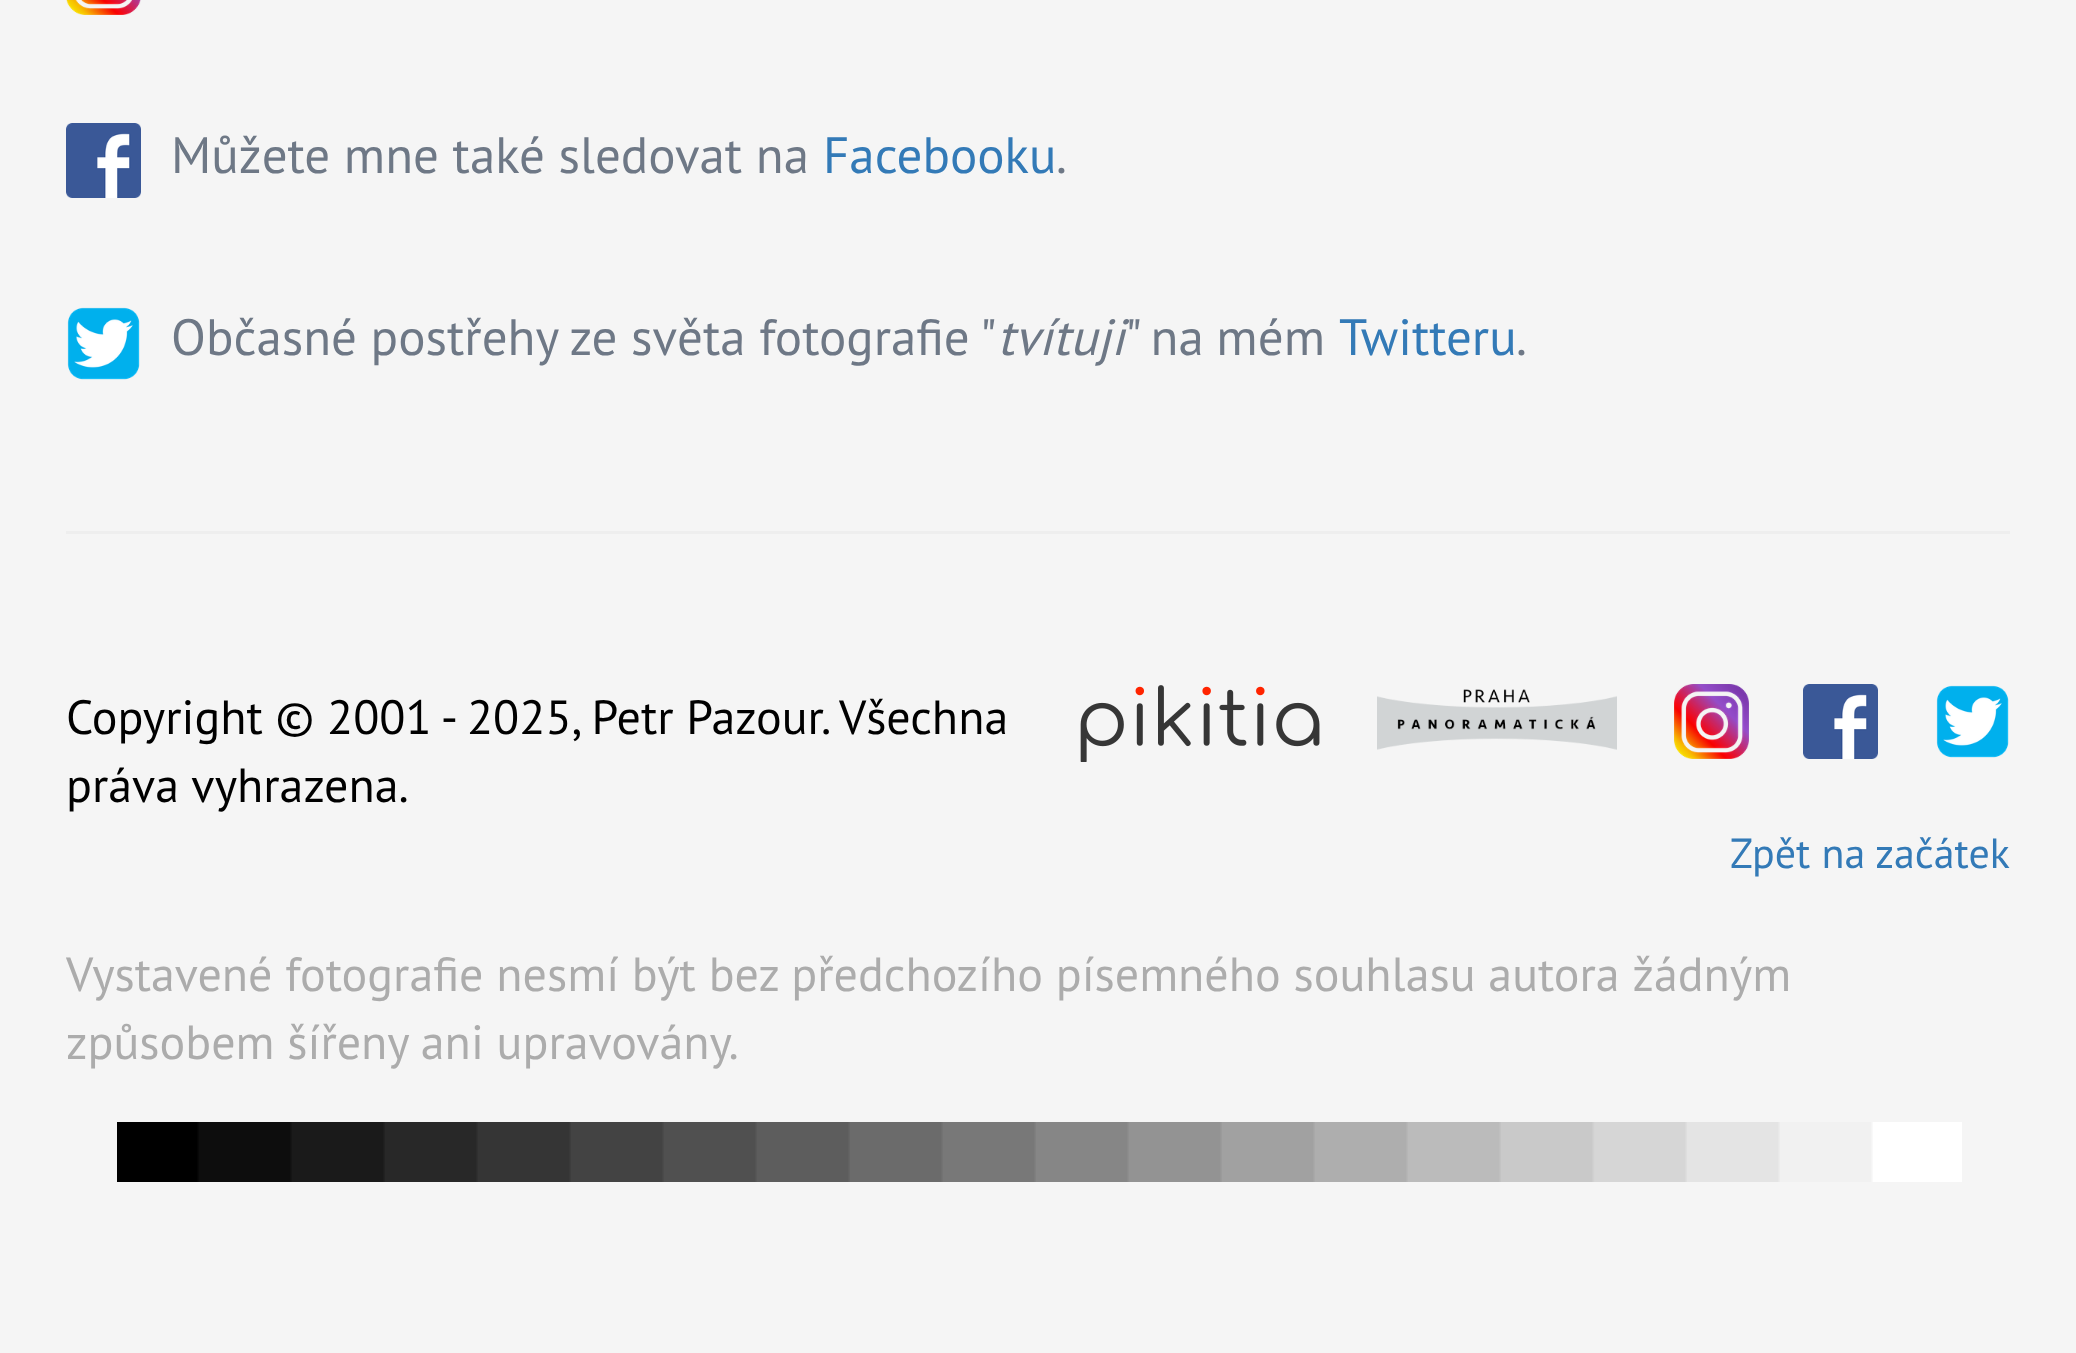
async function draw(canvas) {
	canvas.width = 2076;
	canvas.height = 1353;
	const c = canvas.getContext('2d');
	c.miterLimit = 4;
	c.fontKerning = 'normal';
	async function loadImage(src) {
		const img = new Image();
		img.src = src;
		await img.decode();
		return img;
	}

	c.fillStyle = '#f5f5f5';
	c.fillRect(0, 0, 2076, 1353);
	c.drawImage(await loadImage('img1.png'), 66, 0, 75, 15);
	c.drawImage(await loadImage('img2.png'), 66, 123, 75, 75);
	c.font = '51px PT Sans';
	c.fillStyle = '#6e7886';
	c.fillText('Můžete mne také sledovat na', 171, 173);
	c.fillStyle = '#337ab7';
	c.fillText('Facebooku', 823, 173);
	c.fillStyle = '#6e7886';
	c.fillText('.', 1056, 173);
	c.drawImage(await loadImage('img3.png'), 67, 307, 73, 73);
	c.fillText('Občasné postřehy ze světa fotografie "', 171, 355);
	c.font = 'italic 51px PT Sans';
	c.fillText('tvítuji', 997, 355);
	c.wordSpacing = '-1px';
	c.font = '51px PT Sans';
	c.fillText('" na mém', 1125, 355);
	c.wordSpacing = '0px';
	c.fillStyle = '#337ab7';
	c.fillText('Twitteru', 1339, 355);
	c.fillStyle = '#6e7886';
	c.fillText('.', 1516, 355);
	c.fillStyle = '#eee';
	c.fillRect(66, 531, 1944, 3);
	c.font = '48px PT Sans';
	c.fillStyle = '#000';
	c.fillText('Copyright © 2001 - 2025, Petr Pazour. Všechna', 66, 734);
	c.fillText('práva vyhrazena.', 66, 802);
	c.drawImage(await loadImage('img4.png'), 1080, 685, 240, 77);
	c.drawImage(await loadImage('img5.png'), 1377, 689, 240, 61);
	c.drawImage(await loadImage('img6.png'), 1674, 684, 75, 75);
	c.drawImage(await loadImage('img7.png'), 1803, 684, 75, 75);
	c.drawImage(await loadImage('img8.png'), 1936, 685, 73, 73);
	c.font = '42px PT Sans';
	c.fillStyle = '#337ab7';
	c.fillText('Zpět na začátek', 1730, 868);
	c.font = '48px PT Sans';
	c.fillStyle = '#acacac';
	c.fillText('Vystavené fotografie nesmí být bez předchozího písemného souhlasu autora žádným', 66, 991);
	c.fillText('způsobem šířeny ani upravovány.', 66, 1059);
	c.drawImage(await loadImage('img9.png'), 117, 1122, 1845, 60);
}

draw(document.querySelector('canvas'));
